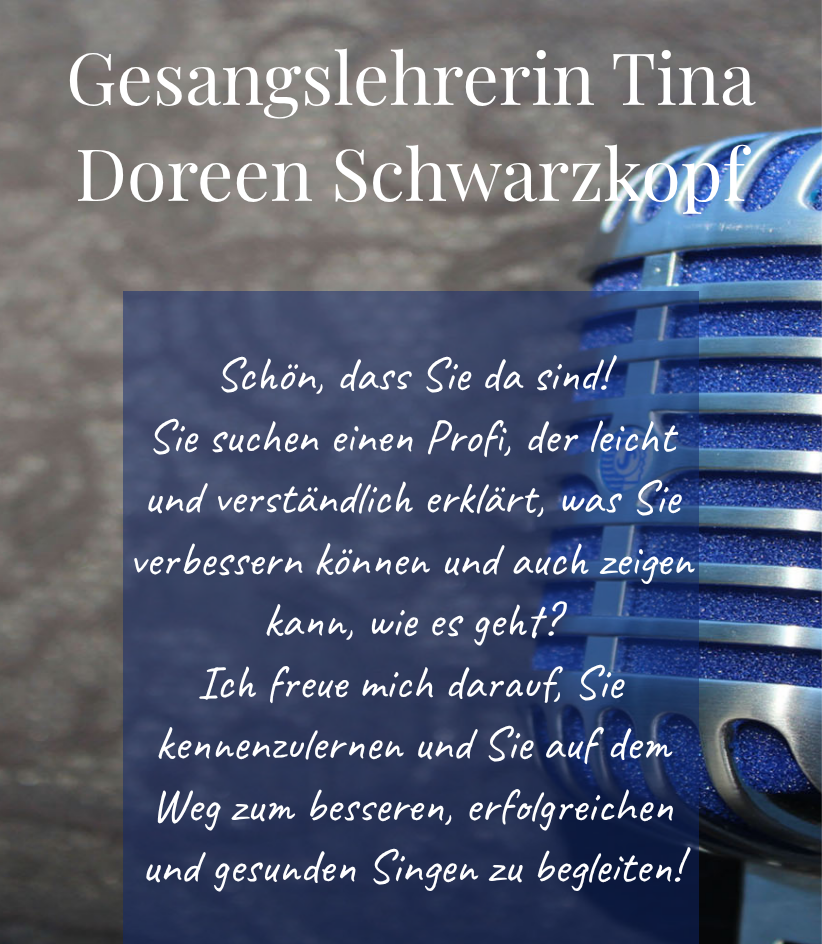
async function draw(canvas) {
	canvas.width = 822;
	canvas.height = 944;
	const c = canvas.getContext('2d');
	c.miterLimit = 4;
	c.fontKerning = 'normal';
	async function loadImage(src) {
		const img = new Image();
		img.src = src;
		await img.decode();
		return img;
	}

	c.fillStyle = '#fff';
	c.fillRect(0, 0, 822, 944);
	c.drawImage(await loadImage('img1.png'), 0, 0, 822, 944);
	c.font = '72px Playfair Display';
	c.fillText('Gesangslehrerin Tina', 66, 105);
	c.fillText('Doreen Schwarzkopf', 75, 201);
	c.fillStyle = '#0f276d80';
	c.fillRect(123, 291, 576, 653);
	c.font = '48px Caveat';
	c.fillStyle = '#fff';
	for (const [text, x, y] of [
		['Schön, dass Sie da sind!', 215, 390],
		['Sie suchen einen Profi, der leicht', 147, 452],
		['und verständlich erklärt, was Sie', 143, 513],
		['verbessern können und auch zeigen', 129, 575],
		['kann, wie es geht?', 263, 636],
		['Ich freue mich darauf, Sie', 197, 698],
	]) {
		c.fillText(text, x, y);
	}
	c.wordSpacing = '-0.5px';
	c.fillText('kennenzulernen und Sie auf dem', 155, 759);
	c.wordSpacing = '0px';
	c.fillText('Weg zum besseren, erfolgreichen', 151, 821);
	c.fillText('und gesunden Singen zu begleiten!', 141, 882);
}

draw(document.querySelector('canvas'));
